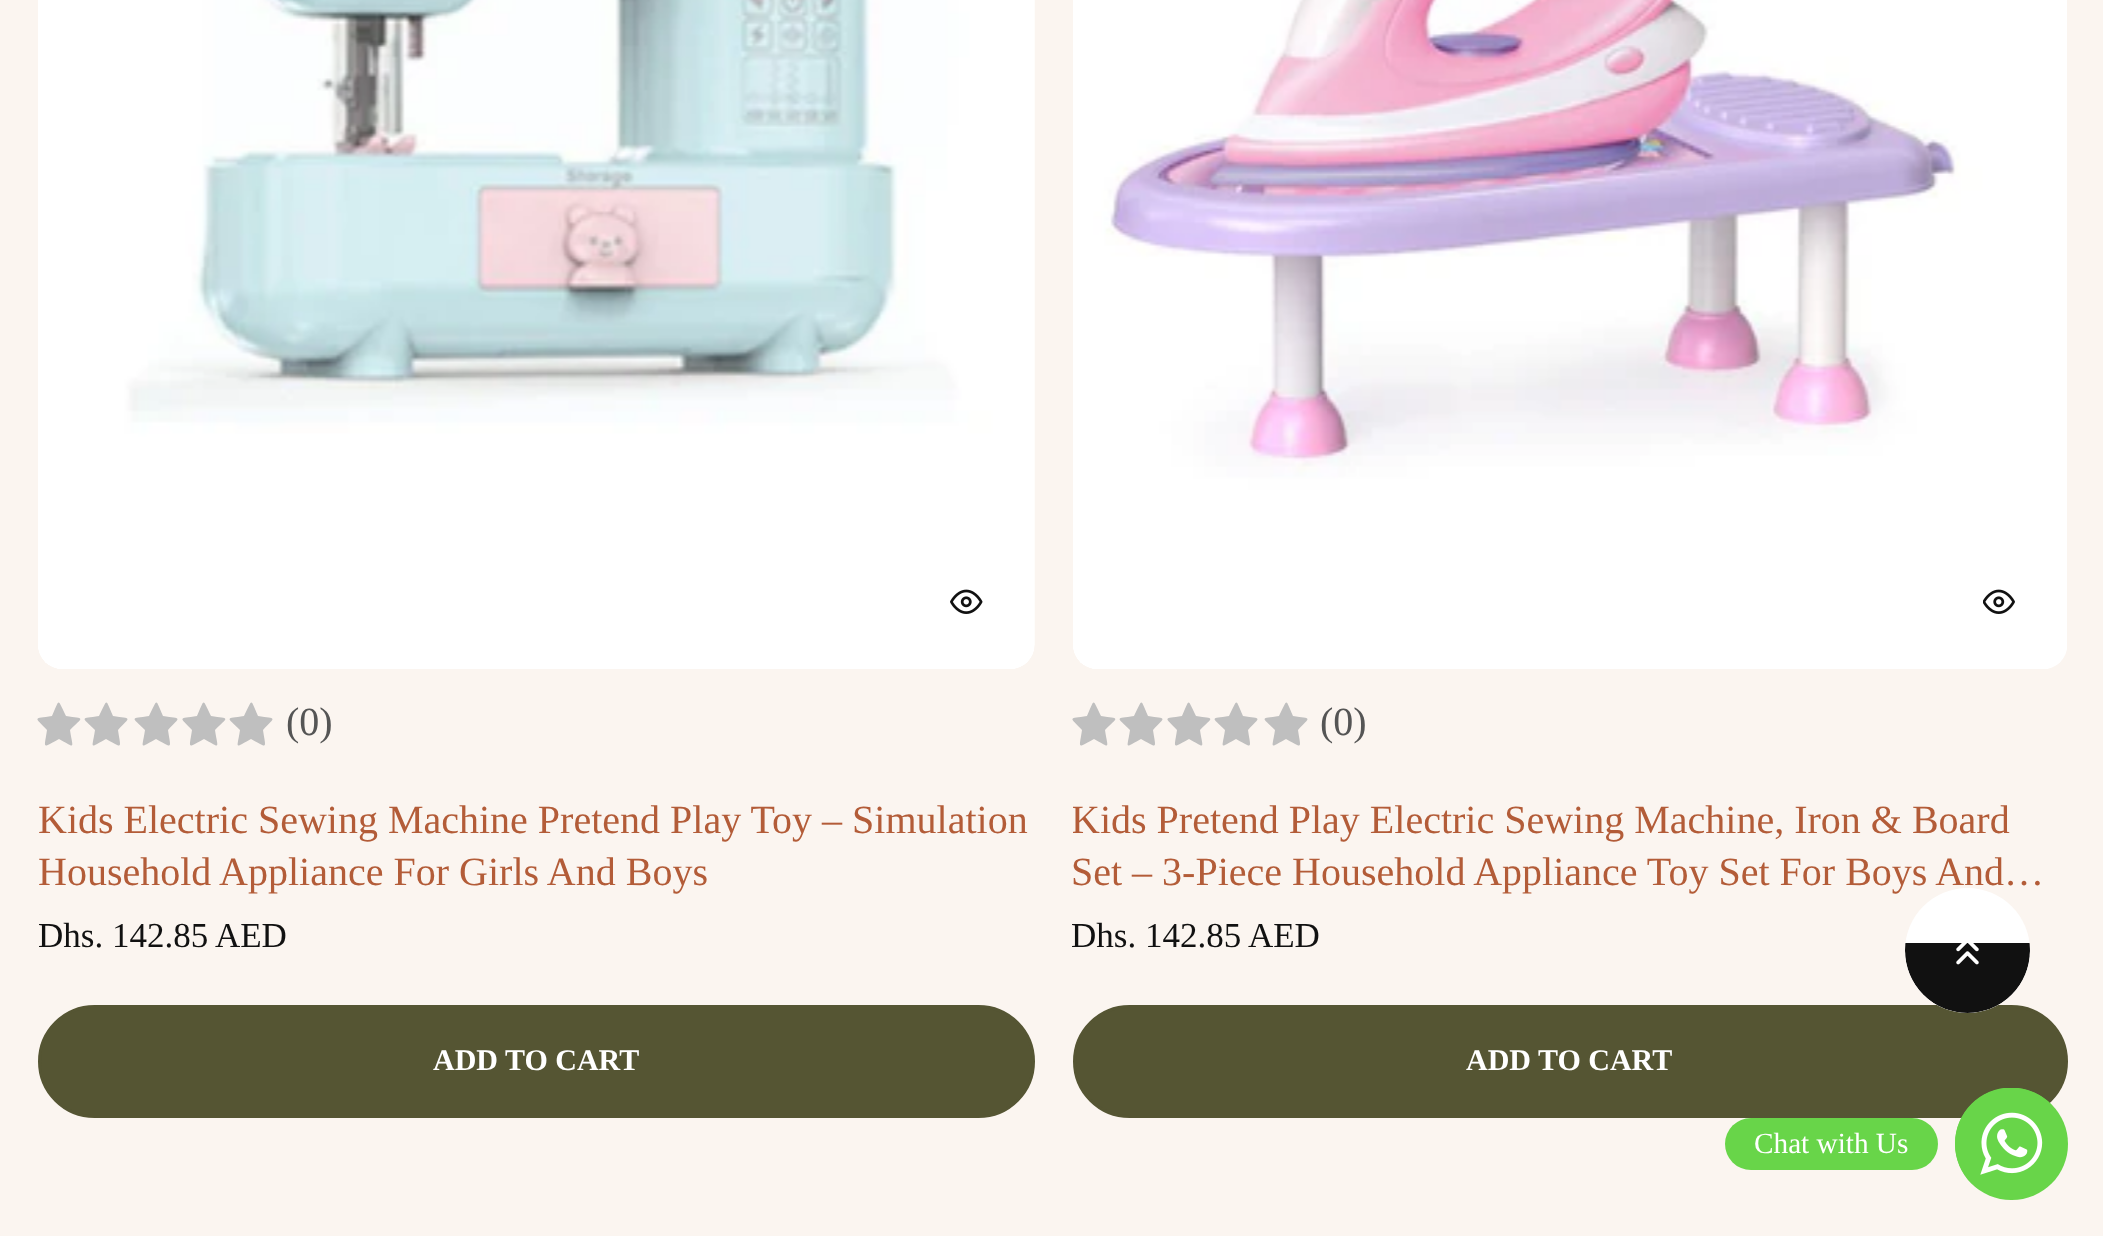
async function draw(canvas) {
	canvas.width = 2103;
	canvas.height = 1236;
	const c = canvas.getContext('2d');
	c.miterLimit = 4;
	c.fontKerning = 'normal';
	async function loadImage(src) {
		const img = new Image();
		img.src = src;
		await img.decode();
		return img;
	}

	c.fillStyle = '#fbf5f0';
	c.fillRect(0, 0, 2103, 1236);
	c.drawImage(await loadImage('img1.png'), 38, 0, 997, 669);
	c.drawImage(await loadImage('img2.png'), 950, 589, 33, 25);
	c.fillStyle = '#bfbfbf';
	c.beginPath();
	c.moveTo(47, 730);
	c.bezierCurveTo(44, 750, 42, 748, 59, 739);
	c.bezierCurveTo(76, 748, 73, 750, 70, 730);
	c.bezierCurveTo(84, 716, 85, 719, 66, 716);
	c.bezierCurveTo(57, 698, 60, 698, 52, 716);
	c.bezierCurveTo(33, 719, 34, 716, 47, 730);
	c.closePath();
	c.fill();
	c.beginPath();
	c.moveTo(95, 730);
	c.bezierCurveTo(92, 750, 89, 748, 106, 739);
	c.bezierCurveTo(123, 748, 121, 750, 118, 730);
	c.bezierCurveTo(131, 716, 132, 719, 113, 716);
	c.bezierCurveTo(105, 698, 108, 698, 99, 716);
	c.bezierCurveTo(80, 719, 81, 716, 95, 730);
	c.closePath();
	c.fill();
	c.beginPath();
	c.moveTo(145, 730);
	c.bezierCurveTo(142, 750, 139, 748, 156, 739);
	c.bezierCurveTo(173, 748, 171, 750, 168, 730);
	c.bezierCurveTo(181, 716, 182, 719, 163, 716);
	c.bezierCurveTo(155, 698, 158, 698, 149, 716);
	c.bezierCurveTo(130, 719, 131, 716, 145, 730);
	c.closePath();
	c.fill();
	c.beginPath();
	c.moveTo(192, 730);
	c.bezierCurveTo(189, 750, 187, 748, 204, 739);
	c.bezierCurveTo(221, 748, 218, 750, 215, 730);
	c.bezierCurveTo(229, 716, 230, 719, 211, 716);
	c.bezierCurveTo(202, 698, 205, 698, 197, 716);
	c.bezierCurveTo(178, 719, 179, 716, 192, 730);
	c.closePath();
	c.fill();
	c.beginPath();
	c.moveTo(240, 730);
	c.bezierCurveTo(237, 750, 234, 748, 251, 739);
	c.bezierCurveTo(268, 748, 266, 750, 263, 730);
	c.bezierCurveTo(276, 716, 277, 719, 258, 716);
	c.bezierCurveTo(250, 698, 253, 698, 244, 716);
	c.bezierCurveTo(225, 719, 226, 716, 240, 730);
	c.closePath();
	c.fill();
	c.font = '40px Liberation Serif';
	c.fillStyle = '#555';
	c.fillText('(0)', 286, 735);
	c.fillStyle = '#b35c38';
	c.fillText('Kids Electric Sewing Machine Pretend Play Toy – Simulation', 38, 833);
	c.fillText('Household Appliance For Girls And Boys', 38, 885);
	c.font = '35px Liberation Serif';
	c.fillStyle = '#111';
	c.fillText('Dhs. 142.85 AED', 38, 947);
	c.fillStyle = '#553';
	c.beginPath();
	c.roundRect(39.5, 1006.5, 994, 110, 55);
	c.fill();
	c.strokeStyle = '#553';
	c.lineWidth = 3;
	c.stroke();
	c.font = 'bold 30px Liberation Serif';
	c.fillStyle = '#fff';
	c.fillText('ADD TO CART', 433, 1070);
	c.drawImage(await loadImage('img3.png'), 1073, 0, 994, 669);
	c.drawImage(await loadImage('img4.png'), 1983, 589, 32, 25);
	c.fillStyle = '#bfbfbf';
	c.beginPath();
	c.moveTo(1082, 730);
	c.bezierCurveTo(1079, 750, 1077, 748, 1094, 739);
	c.bezierCurveTo(1111, 748, 1108, 750, 1105, 730);
	c.bezierCurveTo(1119, 716, 1120, 719, 1101, 716);
	c.bezierCurveTo(1092, 698, 1095, 698, 1087, 716);
	c.bezierCurveTo(1068, 719, 1069, 716, 1082, 730);
	c.closePath();
	c.fill();
	c.beginPath();
	c.moveTo(1130, 730);
	c.bezierCurveTo(1127, 750, 1124, 748, 1141, 739);
	c.bezierCurveTo(1158, 748, 1156, 750, 1153, 730);
	c.bezierCurveTo(1166, 716, 1167, 719, 1148, 716);
	c.bezierCurveTo(1140, 698, 1143, 698, 1134, 716);
	c.bezierCurveTo(1115, 719, 1116, 716, 1130, 730);
	c.closePath();
	c.fill();
	c.beginPath();
	c.moveTo(1177, 730);
	c.bezierCurveTo(1174, 750, 1172, 748, 1189, 739);
	c.bezierCurveTo(1206, 748, 1203, 750, 1200, 730);
	c.bezierCurveTo(1214, 716, 1215, 719, 1196, 716);
	c.bezierCurveTo(1187, 698, 1190, 698, 1182, 716);
	c.bezierCurveTo(1163, 719, 1164, 716, 1177, 730);
	c.closePath();
	c.fill();
	c.beginPath();
	c.moveTo(1225, 730);
	c.bezierCurveTo(1222, 750, 1219, 748, 1236, 739);
	c.bezierCurveTo(1253, 748, 1251, 750, 1248, 730);
	c.bezierCurveTo(1261, 716, 1262, 719, 1243, 716);
	c.bezierCurveTo(1235, 698, 1238, 698, 1229, 716);
	c.bezierCurveTo(1210, 719, 1211, 716, 1225, 730);
	c.closePath();
	c.fill();
	c.beginPath();
	c.moveTo(1275, 730);
	c.bezierCurveTo(1272, 750, 1269, 748, 1286, 739);
	c.bezierCurveTo(1303, 748, 1301, 750, 1298, 730);
	c.bezierCurveTo(1311, 716, 1312, 719, 1293, 716);
	c.bezierCurveTo(1285, 698, 1288, 698, 1279, 716);
	c.bezierCurveTo(1260, 719, 1261, 716, 1275, 730);
	c.closePath();
	c.fill();
	c.font = '40px Liberation Serif';
	c.fillStyle = '#555';
	c.fillText('(0)', 1320, 735);
	c.save();
	c.beginPath();
	c.rect(1073, 795, 995, 105);
	c.clip();
	c.fillStyle = '#b35c38';
	c.fillText('Kids Pretend Play Electric Sewing Machine, Iron & Board', 1071, 833);
	c.restore();
	c.fillStyle = '#b35c38';
	c.fillText('Set – 3-Piece Household Appliance Toy Set For Boys And…', 1071, 885);
	c.font = '35px Liberation Serif';
	c.fillStyle = '#111';
	c.fillText('Dhs. 142.85 AED', 1071, 947);
	c.fillStyle = '#553';
	c.beginPath();
	c.roundRect(1074.5, 1006.5, 992, 110, 55);
	c.fill();
	c.stroke();
	c.font = 'bold 30px Liberation Serif';
	c.fillStyle = '#fff';
	c.fillText('ADD TO CART', 1466, 1070);
	c.beginPath();
	c.arc(1967.5, 950.5, 62.5, 0, 2 * Math.PI);
	c.fill();
	c.save();
	c.beginPath();
	c.roundRect(1905, 888, 125, 125, 62.5);
	c.clip();
	c.fillStyle = '#111';
	c.beginPath();
	c.roundRect(1905, 943, 125, 70, [0, 0, 62.5, 62.5]);
	c.fill();
	c.restore();
	c.drawImage(await loadImage('img5.png'), 1956, 943, 23, 22);
	c.fillStyle = '#68d549';
	c.beginPath();
	c.roundRect(1725, 1118, 213, 52, 26);
	c.fill();
	c.font = '29.25px Liberation Serif';
	c.fillStyle = '#fff';
	c.fillText('Chat with Us', 1754, 1153);
	c.fillStyle = '#68d549';
	c.beginPath();
	c.roundRect(1955, 1088, 113, 112, 56);
	c.fill();
	c.drawImage(await loadImage('img6.png'), 1955, 1088, 98, 102);
}

draw(document.querySelector('canvas'));
